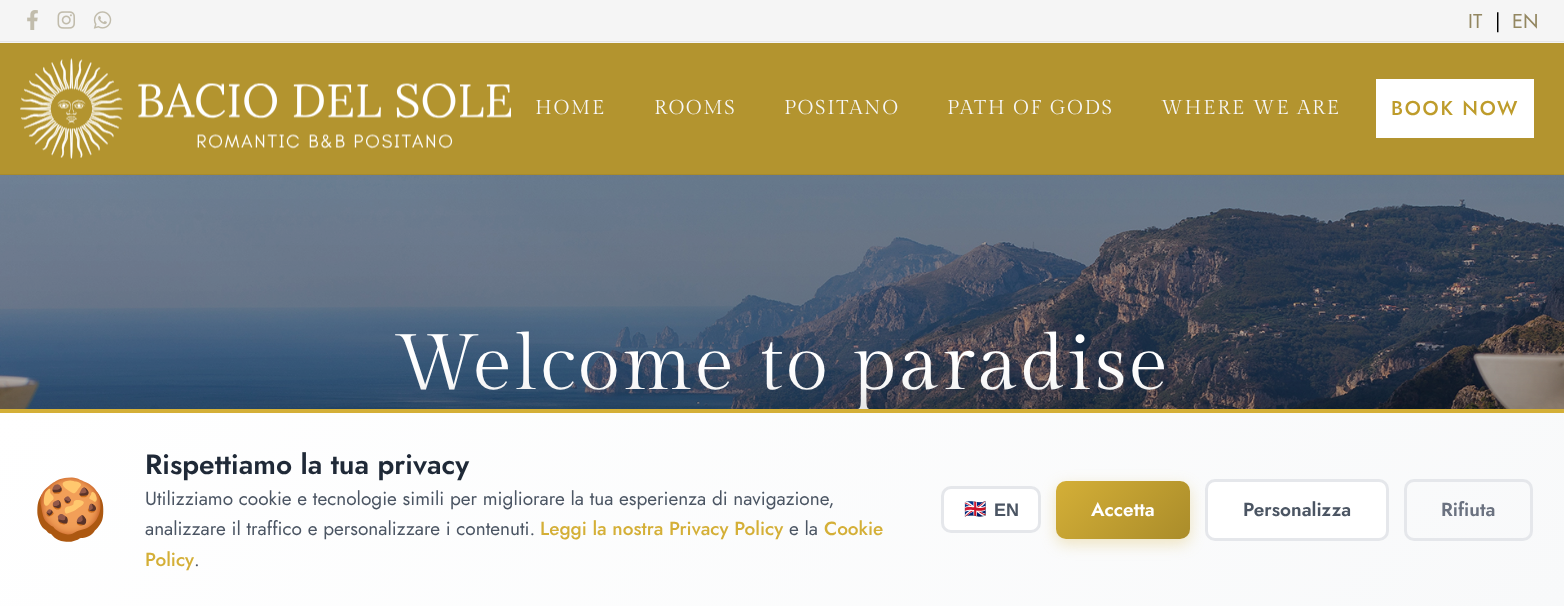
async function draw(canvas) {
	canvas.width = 1564;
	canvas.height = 606;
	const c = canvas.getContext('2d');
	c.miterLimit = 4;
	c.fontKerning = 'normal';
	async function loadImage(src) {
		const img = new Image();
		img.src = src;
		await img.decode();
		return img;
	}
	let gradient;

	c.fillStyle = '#fff';
	c.fillRect(0, 0, 1564, 606);
	c.fillStyle = '#f5f5f5';
	c.fillRect(0, 0, 1564, 43);
	c.fillStyle = '#e6e6e6';
	c.fillRect(0, 41, 1564, 1);
	c.drawImage(await loadImage('img1.png'), 27, 10, 11, 20);
	c.drawImage(await loadImage('img2.png'), 57, 11, 18, 18);
	c.drawImage(await loadImage('img3.png'), 93, 11, 19, 18);
	c.font = '20px Jost';
	c.fillStyle = '#938761';
	c.fillText('IT', 1468, 28);
	c.fillStyle = '#000';
	c.fillText('|', 1495, 28);
	c.fillStyle = '#938761';
	c.fillText('EN', 1512, 28);
	c.fillStyle = '#b3942f';
	c.fillRect(0, 43, 1564, 131);
	c.fillStyle = '#a88b2c';
	c.fillRect(0, 174, 1564, 1);
	c.drawImage(await loadImage('img4.png'), 20, 58, 491, 101);
	c.letterSpacing = '1.75px';
	c.font = '20px Gilda Display';
	c.fillStyle = '#f7f7f7';
	for (const [text, x, y] of [
		['HOME', 535, 114],
		['ROOMS', 654, 114],
		['POSITANO', 784, 114],
		['PATH OF GODS', 947, 114],
		['WHERE WE ARE', 1161, 114],
	]) {
		c.fillText(text, x, y);
	}
	c.fillStyle = '#fff';
	c.fillRect(1376, 79, 158, 59);
	c.font = '500 20px Jost';
	c.fillStyle = '#be9c2b';
	c.fillText('BOOK NOW', 1391, 115);
	c.drawImage(await loadImage('img5.png'), 0, 175, 1564, 234);
	c.letterSpacing = '2.5px';
	c.font = '78.25px Gilda Display';
	c.fillStyle = '#fff';
	c.fillText('Welcome to paradise', 394, 389);
	c.fillStyle = '#00000026';
	c.filter = 'blur(20px)';
	c.beginPath();
	c.rect(0, 399, 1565, 197);
	c.fill();
	c.filter = 'none';
	gradient = c.createLinearGradient(343, 70, 1222, 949);
	gradient.addColorStop(0, '#fff');
	gradient.addColorStop(1, '#f8f9fa');
	c.fillStyle = gradient;
	c.fillRect(0, 413, 1564, 193);
	c.fillStyle = '#d4af37';
	c.fillRect(0, 409, 1564, 4);
	c.letterSpacing = '0px';
	c.font = '60px Noto Color Emoji';
	c.fillStyle = '#000';
	c.fillText('🍪', 33, 530);
	c.font = '600 28px Jost';
	c.fillStyle = '#1f2937';
	c.fillText('Rispettiamo la tua privacy', 145, 474);
	c.font = '19px Jost';
	c.fillStyle = '#4b5563';
	c.fillText('Utilizziamo cookie e tecnologie simili per migliorare la tua esperienza di navigazione,', 145, 505);
	c.fillText('analizzare il traffico e personalizzare i contenuti.', 145, 535);
	c.font = '500 19px Jost';
	c.fillStyle = '#d4af37';
	c.fillText('Leggi la nostra Privacy Policy', 540, 535);
	c.font = '19px Jost';
	c.fillStyle = '#4b5563';
	c.fillText('e la', 789, 535);
	c.font = '500 19px Jost';
	c.fillStyle = '#d4af37';
	c.fillText('Cookie', 824, 535);
	c.fillText('Policy', 145, 566);
	c.font = '19px Jost';
	c.fillStyle = '#4b5563';
	c.fillText('.', 194, 566);
	c.fillStyle = '#fff';
	c.beginPath();
	c.roundRect(942.5, 487.5, 97, 44, 8.5);
	c.fill();
	c.strokeStyle = '#e5e7eb';
	c.lineWidth = 3;
	c.stroke();
	c.font = 'bold 18px Noto Color Emoji';
	c.fillStyle = '#4b5563';
	c.fillText('🇬🇧', 964, 515);
	c.font = 'bold 18px Liberation Sans';
	c.fillText('EN', 994, 516);
	c.fillStyle = '#d4af374d';
	c.filter = 'blur(7.5px)';
	c.beginPath();
	c.roundRect(1056, 486, 134, 58, 10);
	c.fill();
	c.filter = 'none';
	gradient = c.createLinearGradient(1075, 462, 1171, 558);
	gradient.addColorStop(0, '#d4af37');
	gradient.addColorStop(1, '#aa8c2a');
	c.fillStyle = gradient;
	c.beginPath();
	c.roundRect(1056, 481, 134, 58, 10);
	c.fill();
	c.font = '600 19px Jost';
	c.fillStyle = '#fff';
	c.fillText('Accetta', 1091, 516);
	c.beginPath();
	c.roundRect(1206.5, 480.5, 181, 59, 8.5);
	c.fill();
	c.stroke();
	c.fillStyle = '#4b5563';
	c.fillText('Personalizza', 1243, 516);
	c.beginPath();
	c.roundRect(1405.5, 480.5, 126, 59, 8.5);
	c.stroke();
	c.fillStyle = '#6b7280';
	c.fillText('Rifiuta', 1441, 516);
}

draw(document.querySelector('canvas'));
